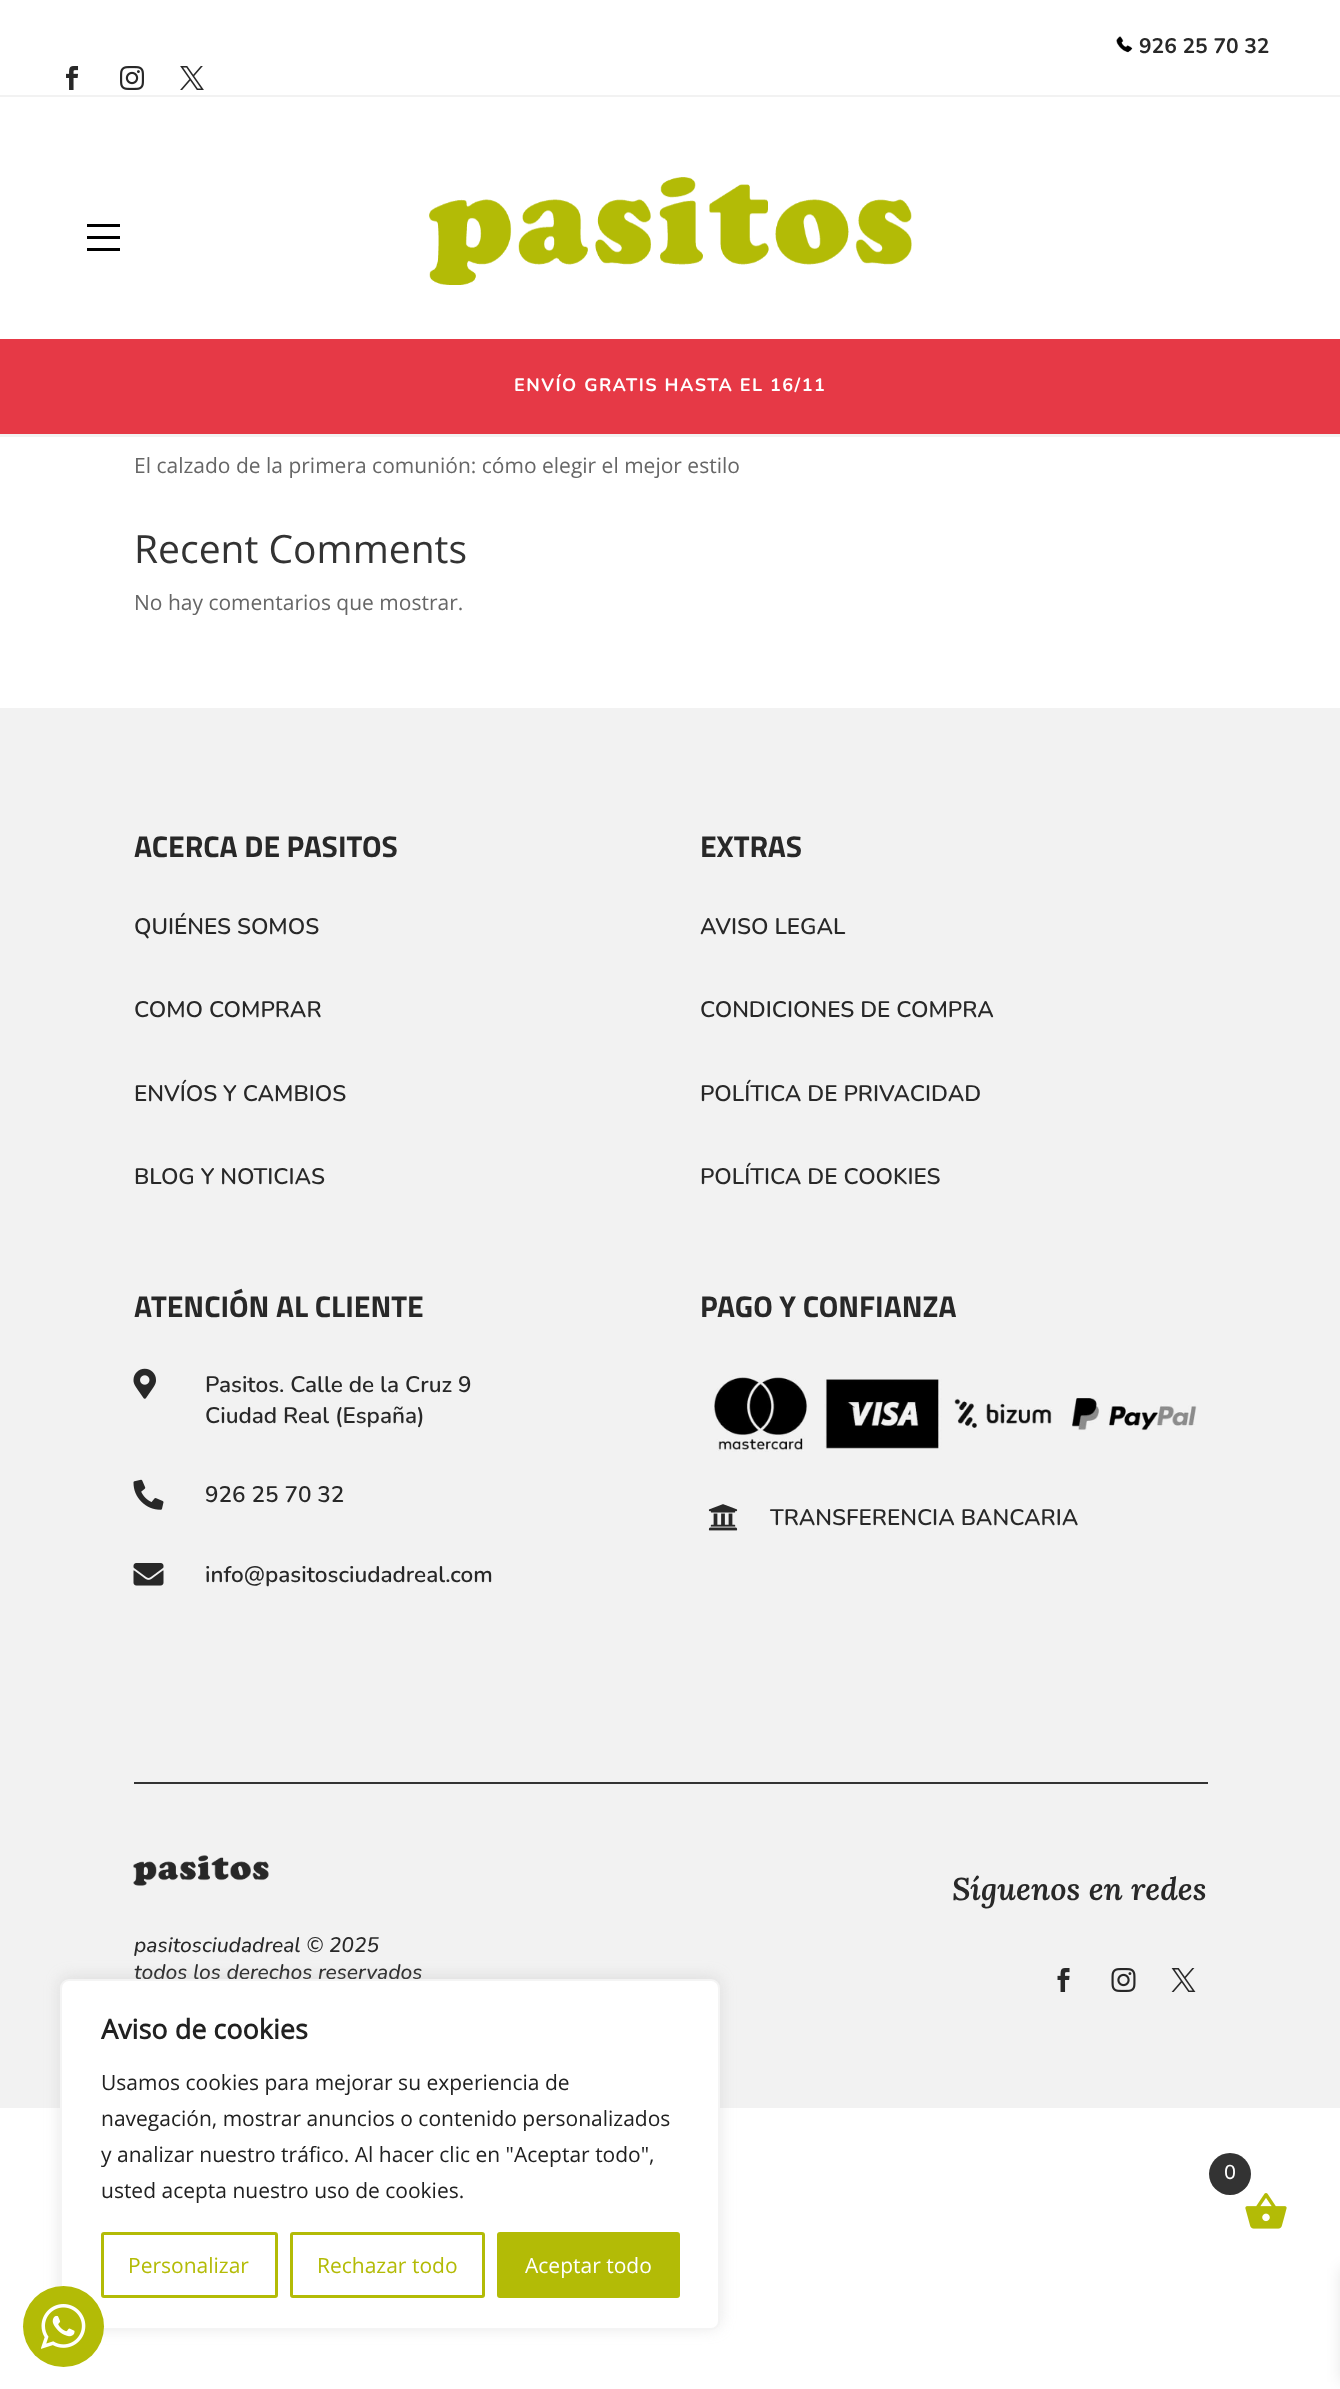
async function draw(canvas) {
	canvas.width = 1340;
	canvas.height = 2389;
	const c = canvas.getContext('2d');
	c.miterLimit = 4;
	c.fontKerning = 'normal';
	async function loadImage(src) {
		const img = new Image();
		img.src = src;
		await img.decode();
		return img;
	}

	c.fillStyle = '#fff';
	c.fillRect(0, 0, 1340, 2389);
	c.fillStyle = '#f2f2f2';
	c.fillRect(0, 434, 1340, 3);
	c.fillRect(0, 95, 1340, 2);
	c.drawImage(await loadImage('img1.png'), 1116, 36, 17, 17);
	c.font = '200 21px "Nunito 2"';
	c.fillStyle = '#282828';
	c.fillText('926 25 70 32', 1139, 53);
	c.drawImage(await loadImage('img2.png'), 66, 66, 13, 24);
	c.drawImage(await loadImage('img3.png'), 120, 66, 24, 24);
	c.drawImage(await loadImage('img4.png'), 180, 66, 24, 24);
	for (const [x, y, w, h, color] of [
		[87, 224, 33, 3, '#000'],
		[87, 236, 33, 3, '#000'],
		[87, 248, 33, 3, '#000'],
	]) {
		c.fillStyle = color;
		c.fillRect(x, y, w, h);
	}
	c.drawImage(await loadImage('img5.png'), 429, 177, 483, 108);
	c.fillStyle = '#e63946';
	c.fillRect(0, 339, 1340, 95);
	c.letterSpacing = '1.5px';
	c.font = '200 18px "Nunito 2"';
	c.fillStyle = '#fff';
	c.fillText('ENVÍO GRATIS HASTA EL 16/11', 514, 391);
	c.letterSpacing = '0px';
	c.font = '21px Open Sans';
	c.fillStyle = '#666';
	c.fillText('El calzado de la primera comunión: cómo elegir el mejor estilo', 134, 473);
	c.font = '39px Open Sans';
	c.fillStyle = '#333';
	c.fillText('Recent Comments', 134, 563);
	c.font = '21px Open Sans';
	c.fillStyle = '#666';
	c.fillText('No hay comentarios que mostrar.', 134, 610);
	c.fillStyle = '#f2f2f2';
	c.fillRect(0, 708, 1340, 1400);
	c.fillStyle = '#333';
	c.fillRect(134, 1782, 1074, 2);
	c.font = 'bold 30px Titillium Web';
	c.fillStyle = '#282828';
	c.fillText('ACERCA DE PASITOS', 134, 857);
	c.font = '200 22.5px Nunito';
	for (const [text, x, y] of [
		['QUIÉNES SOMOS', 134, 934],
		['COMO COMPRAR', 134, 1017],
		['ENVÍOS Y CAMBIOS', 134, 1101],
		['BLOG Y NOTICIAS', 134, 1184],
	]) {
		c.fillText(text, x, y);
	}
	c.font = 'bold 30px Titillium Web';
	c.fillText('EXTRAS', 700, 857);
	c.font = '200 22.5px Nunito';
	for (const [text, x, y] of [
		['AVISO LEGAL', 700, 934],
		['CONDICIONES DE COMPRA', 700, 1017],
		['POLÍTICA DE PRIVACIDAD', 700, 1101],
		['POLÍTICA DE COOKIES', 700, 1184],
	]) {
		c.fillText(text, x, y);
	}
	c.font = 'bold 30px Titillium Web';
	c.fillText('ATENCIÓN AL CLIENTE', 134, 1317);
	c.drawImage(await loadImage('img6.png'), 133, 1368, 23, 31);
	c.font = '200 22.5px Nunito';
	c.fillText('Pasitos. Calle de la Cruz 9', 205, 1392);
	c.fillText('Ciudad Real (España)', 205, 1423);
	c.drawImage(await loadImage('img7.png'), 133, 1479, 31, 31);
	c.fillText('926 25 70 32', 205, 1502);
	c.drawImage(await loadImage('img8.png'), 133, 1563, 31, 23);
	c.fillText('info@pasitosciudadreal.com', 205, 1582);
	c.font = 'bold 30px Titillium Web';
	c.fillText('PAGO Y CONFIANZA', 700, 1317);
	c.drawImage(await loadImage('img9.png'), 713, 1376, 484, 76);
	c.drawImage(await loadImage('img10.png'), 708, 1504, 30, 27);
	c.font = '200 22.5px Nunito';
	c.fillText('TRANSFERENCIA BANCARIA', 770, 1525);
	c.font = 'italic 600 31.5px Lora';
	c.fillText('Síguenos en redes', 952, 1900);
	c.drawImage(await loadImage('img11.png'), 1057, 1968, 13, 24);
	c.drawImage(await loadImage('img12.png'), 1111, 1968, 25, 24);
	c.drawImage(await loadImage('img13.png'), 1171, 1968, 25, 24);
	c.drawImage(await loadImage('img14.png'), 133, 1855, 136, 31);
	c.font = 'italic 200 21px Nunito';
	c.fillText('pasitosciudadreal © 2025', 134, 1952);
	c.fillText('todos los derechos reservados', 134, 1979);
	c.fillStyle = '#acabab4d';
	c.filter = 'blur(7.5px)';
	c.beginPath();
	c.roundRect(60, 1977, 660, 351, 9);
	c.fill();
	c.filter = 'none';
	c.fillStyle = '#fff';
	c.beginPath();
	c.roundRect(61, 1980, 658, 349, 8);
	c.fill();
	c.strokeStyle = '#f4f4f4';
	c.lineWidth = 2;
	c.stroke();
	c.font = 'bold 27px Open Sans';
	c.fillStyle = '#212121';
	c.fillText('Aviso de cookies', 101, 2039);
	c.font = '21px Open Sans';
	for (const [text, x, y] of [
		['Usamos cookies para mejorar su experiencia de', 101, 2090],
		['navegación, mostrar anuncios o contenido personalizados', 101, 2126],
		['y analizar nuestro tráfico. Al hacer clic en "Aceptar todo",', 101, 2162],
		['usted acepta nuestro uso de cookies.', 101, 2198],
	]) {
		c.fillText(text, x, y);
	}
	c.beginPath();
	c.roundRect(102.5, 2233.5, 174, 63, 1.5);
	c.strokeStyle = '#b3bb06';
	c.lineWidth = 3;
	c.stroke();
	c.fillStyle = '#b3bb06';
	c.fillText('Personalizar', 128, 2273);
	c.beginPath();
	c.roundRect(291.5, 2233.5, 192, 63, 1.5);
	c.stroke();
	c.fillText('Rechazar todo', 317, 2273);
	c.beginPath();
	c.roundRect(498.5, 2233.5, 180, 63, 1.5);
	c.fill();
	c.stroke();
	c.fillStyle = '#fff';
	c.fillText('Aceptar todo', 525, 2273);
	c.drawImage(await loadImage('img15.png'), 1245, 2193, 42, 36);
	c.fillStyle = '#333';
	c.beginPath();
	c.arc(1230, 2174, 21, 0, 2 * Math.PI);
	c.fill();
	c.font = '200 20px "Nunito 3"';
	c.fillStyle = '#fff';
	c.fillText('0', 1224, 2179);
	c.fillStyle = '#0000001a';
	c.filter = 'blur(7.5px)';
	c.beginPath();
	c.rect(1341, 2268, 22, 114);
	c.fill();
	c.filter = 'none';
	c.fillStyle = '#b3bb06';
	c.beginPath();
	c.arc(63.5, 2326.5, 40.5, 0, 2 * Math.PI);
	c.fill();
	c.drawImage(await loadImage('img16.png'), 41, 2304, 45, 45);
}

draw(document.querySelector('canvas'));
